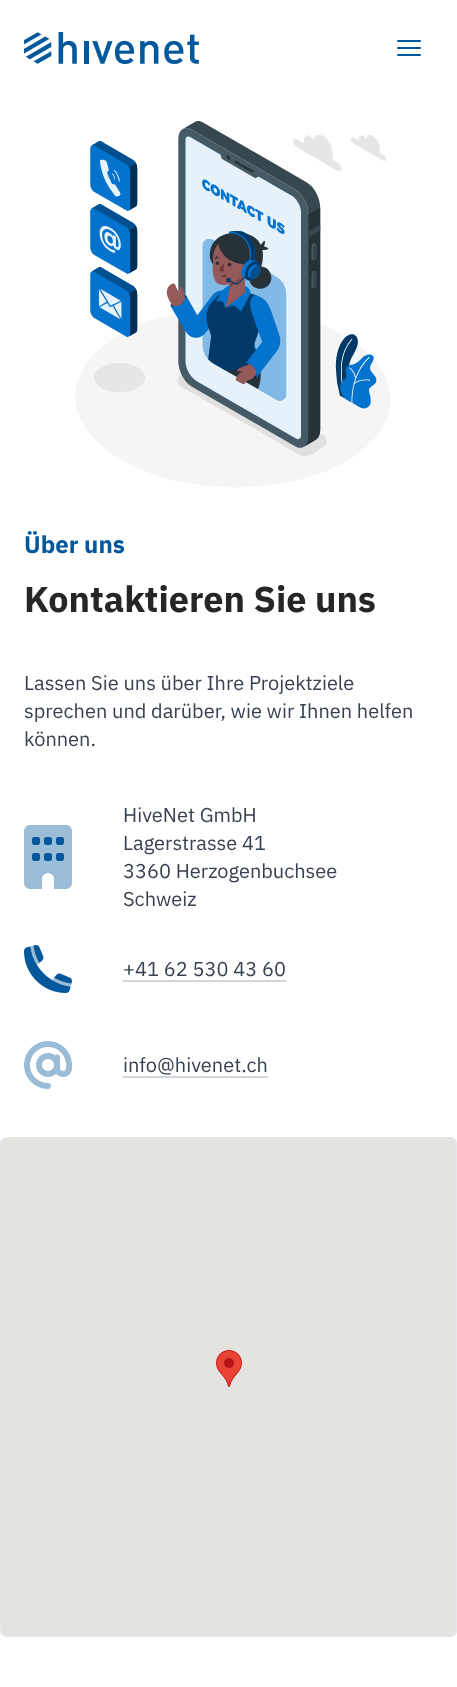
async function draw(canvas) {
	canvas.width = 457;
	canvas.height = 1687;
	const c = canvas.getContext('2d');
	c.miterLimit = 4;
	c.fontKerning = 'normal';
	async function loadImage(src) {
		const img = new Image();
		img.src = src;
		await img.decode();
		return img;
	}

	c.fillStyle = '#fff';
	c.fillRect(0, 0, 457, 1687);
	c.drawImage(await loadImage('img1.png'), 24, 32, 175, 32);
	c.beginPath();
	c.moveTo(398, 41);
	c.lineTo(420, 41);
	c.moveTo(398, 48);
	c.lineTo(420, 48);
	c.moveTo(398, 55);
	c.lineTo(420, 55);
	c.strokeStyle = '#03579b';
	c.lineWidth = 2;
	c.lineCap = 'round';
	c.lineJoin = 'round';
	c.stroke();
	c.drawImage(await loadImage('img2.png'), 75, 121, 316, 367);
	c.font = 'bold 24px IBM Plex Sans';
	c.fillStyle = '#03579b';
	c.fillText('Über uns', 24, 553);
	c.font = 'bold 36px IBM Plex Sans';
	c.fillStyle = '#262626';
	c.fillText('Kontaktieren Sie uns', 24, 612);
	c.font = '20px IBM Plex Sans';
	c.fillStyle = '#374151';
	for (const [text, x, y] of [
		['Lassen Sie uns über Ihre Projektziele', 24, 690],
		['sprechen und darüber, wie wir Ihnen helfen', 24, 718],
		['können.', 24, 746],
	]) {
		c.fillText(text, x, y);
	}
	c.drawImage(await loadImage('img4.png'), 32, 837, 32, 24);
	c.drawImage(await loadImage('img3.png'), 24, 825, 48, 64);
	for (const [text, x, y] of [
		['HiveNet GmbH', 123, 822],
		['Lagerstrasse 41', 123, 850],
		['3360 Herzogenbuchsee', 123, 878],
		['Schweiz', 123, 906],
	]) {
		c.fillText(text, x, y);
	}
	c.drawImage(await loadImage('img5.png'), 24, 945, 48, 48);
	c.drawImage(await loadImage('img6.png'), 30, 945, 42, 42);
	c.fillText('+41 62 530 43 60', 123, 976);
	c.fillStyle = '#d1d5db';
	c.fillRect(123, 980, 163, 2);
	c.drawImage(await loadImage('img7.png'), 24, 1041, 48, 48);
	c.fillStyle = '#374151';
	c.fillText('info@hivenet.ch', 123, 1072);
	c.fillStyle = '#d1d5db';
	c.fillRect(123, 1076, 145, 2);
	c.beginPath();
	c.roundRect(0.5, 1137.5, 456, 499, 5.5);
	c.strokeStyle = '#e5e7eb';
	c.lineWidth = 1;
	c.lineJoin = 'miter';
	c.stroke();
	c.fillStyle = '#e5e3df';
	c.beginPath();
	c.roundRect(1, 1138, 455, 498, 5);
	c.fill();
	c.drawImage(await loadImage('img8.png'), 216, 1350, 26, 37);
}

draw(document.querySelector('canvas'));
